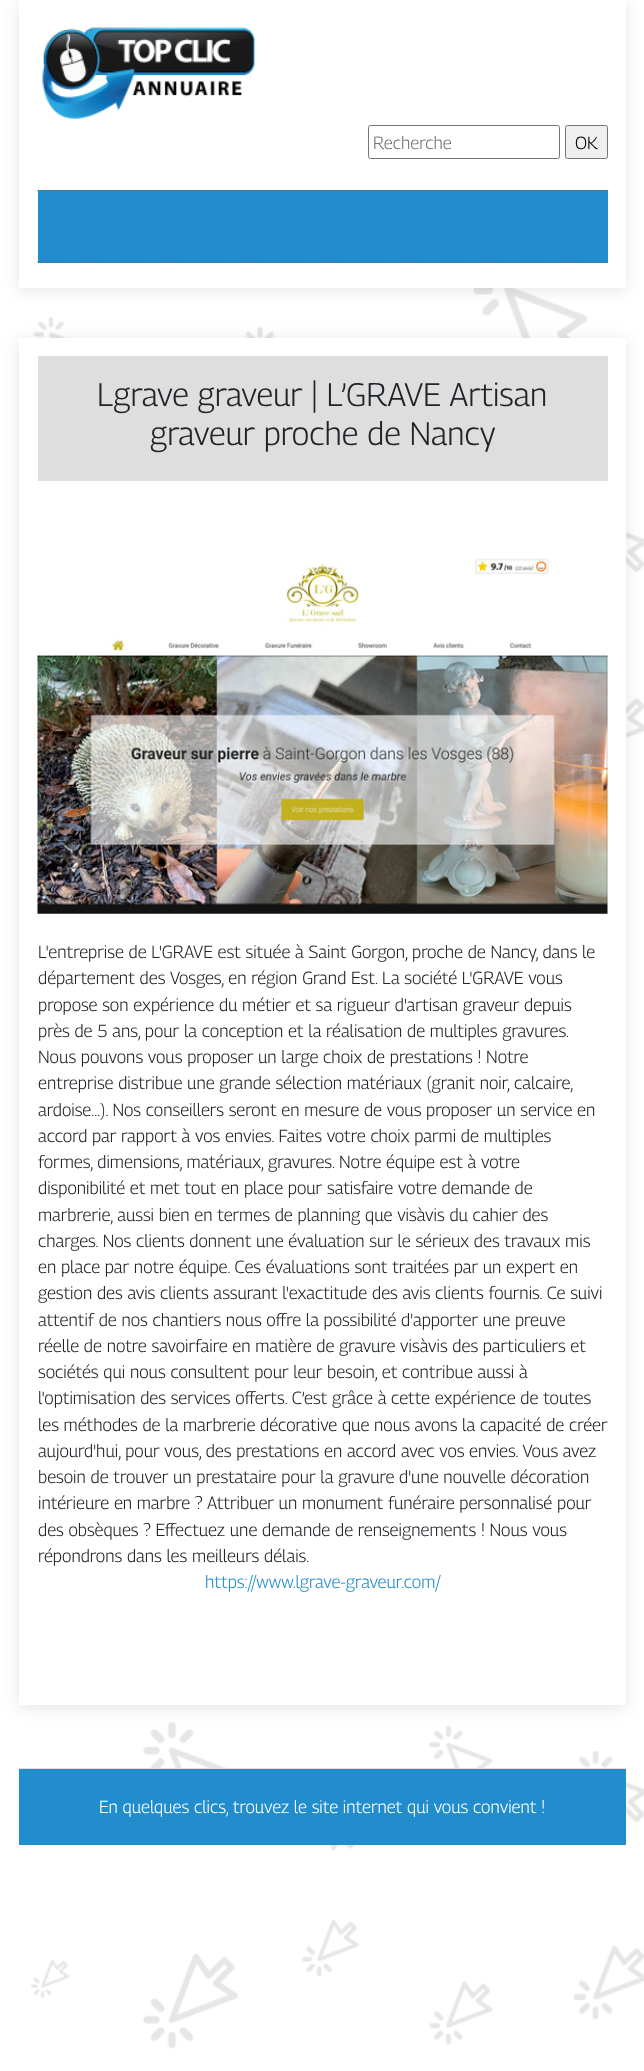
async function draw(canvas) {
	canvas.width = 644;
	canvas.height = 2071;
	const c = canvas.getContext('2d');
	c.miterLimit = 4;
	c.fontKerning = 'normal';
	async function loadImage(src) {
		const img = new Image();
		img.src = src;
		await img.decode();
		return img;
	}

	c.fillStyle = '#fff';
	c.fillRect(0, 0, 644, 2071);
	c.drawImage(await loadImage('img1.png'), 31, 288, 613, 1761);
	c.fillStyle = '#0000001a';
	c.filter = 'blur(8px)';
	c.beginPath();
	c.rect(19, 3, 607, 287);
	c.fill();
	c.filter = 'none';
	c.fillStyle = '#fff';
	c.fillRect(19, 0, 607, 288);
	c.drawImage(await loadImage('img2.png'), 42, 27, 214, 92);
	c.beginPath();
	c.roundRect(368.5, 125.5, 191, 33, 2);
	c.strokeStyle = '#767676';
	c.stroke();
	c.font = '100 17.5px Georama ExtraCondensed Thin';
	c.fillStyle = '#757575';
	c.fillText('Recherche', 373, 149);
	c.fillStyle = '#efefef';
	c.beginPath();
	c.roundRect(565.5, 125.5, 42, 33, 2);
	c.fill();
	c.stroke();
	c.fillStyle = '#000';
	c.fillText('OK', 575, 149);
	c.fillStyle = '#218dcc';
	c.fillRect(38, 190, 570, 73);
	c.beginPath();
	c.moveTo(37.5, 190.5);
	c.lineTo(607.5, 190.5);
	c.strokeStyle = '#666';
	c.lineWidth = 1.2;
	c.setLineDash([1.25, 1.25]);
	c.stroke();
	c.beginPath();
	c.moveTo(37.5, 262);
	c.lineTo(607.5, 262);
	c.stroke();
	c.fillStyle = '#0000001a';
	c.filter = 'blur(8px)';
	c.beginPath();
	c.rect(19, 340, 607, 1368);
	c.fill();
	c.filter = 'none';
	c.fillStyle = '#fff';
	c.fillRect(19, 338, 607, 1367);
	c.fillStyle = '#dedede';
	c.fillRect(38, 356, 570, 125);
	c.font = '100 32.5px Georama ExtraCondensed Thin';
	c.fillStyle = '#212529';
	c.fillText('Lgrave graveur | L’GRAVE Artisan', 97, 406);
	c.fillText('graveur proche de Nancy', 150, 445);
	c.drawImage(await loadImage('img3.png'), 37, 556, 571, 358);
	c.font = '100 17.5px Georama ExtraCondensed Thin';
	for (const [text, x, y] of [
		['L\'entreprise de L\'GRAVE est située à Saint Gorgon, proche de Nancy, dans le', 38, 958],
		['département des Vosges, en région Grand Est. La société L\'GRAVE vous', 38, 984],
		['propose son expérience du métier et sa rigueur d\'artisan graveur depuis', 38, 1011],
		['près de 5 ans, pour la conception et la réalisation de multiples gravures.', 38, 1037],
		['Nous pouvons vous proposer un large choix de prestations ! Notre', 38, 1063],
		['entreprise distribue une grande sélection matériaux (granit noir, calcaire,', 38, 1089],
		['ardoise...). Nos conseillers seront en mesure de vous proposer un service en', 38, 1116],
		['accord par rapport à vos envies. Faites votre choix parmi de multiples', 38, 1142],
		['formes, dimensions, matériaux, gravures. Notre équipe est à votre', 38, 1168],
		['disponibilité et met tout en place pour satisfaire votre demande de', 38, 1194],
		['marbrerie, aussi bien en termes de planning que visàvis du cahier des', 38, 1221],
		['charges. Nos clients donnent une évaluation sur le sérieux des travaux mis', 38, 1247],
		['en place par notre équipe. Ces évaluations sont traitées par un expert en', 38, 1273],
		['gestion des avis clients assurant l\'exactitude des avis clients fournis. Ce suivi', 38, 1299],
		['attentif de nos chantiers nous offre la possibilité d\'apporter une preuve', 38, 1326],
		['réelle de notre savoirfaire en matière de gravure visàvis des particuliers et', 38, 1352],
		['sociétés qui nous consultent pour leur besoin, et contribue aussi à', 38, 1378],
		['l\'optimisation des services offerts. C’est grâce à cette expérience de toutes', 38, 1404],
		['les méthodes de la marbrerie décorative que nous avons la capacité de créer', 38, 1431],
		['aujourd\'hui, pour vous, des prestations en accord avec vos envies. Vous avez', 38, 1457],
		['besoin de trouver un prestataire pour la gravure d\'une nouvelle décoration', 38, 1483],
		['intérieure en marbre ? Attribuer un monument funéraire personnalisé pour', 38, 1509],
		['des obsèques ? Effectuez une demande de renseignements ! Nous vous', 38, 1536],
		['répondrons dans les meilleurs délais.', 38, 1562],
	]) {
		c.fillText(text, x, y);
	}
	c.fillStyle = '#218dcc';
	c.fillText('https://www.lgrave-graveur.com/', 205, 1588);
	c.fillRect(19, 1769, 607, 76);
	c.fillStyle = '#ddd';
	c.fillRect(19, 1768, 607, 1);
	c.fillStyle = '#fff';
	c.fillText('En quelques clics, trouvez le site internet qui vous convient !', 99, 1813);
}

draw(document.querySelector('canvas'));
